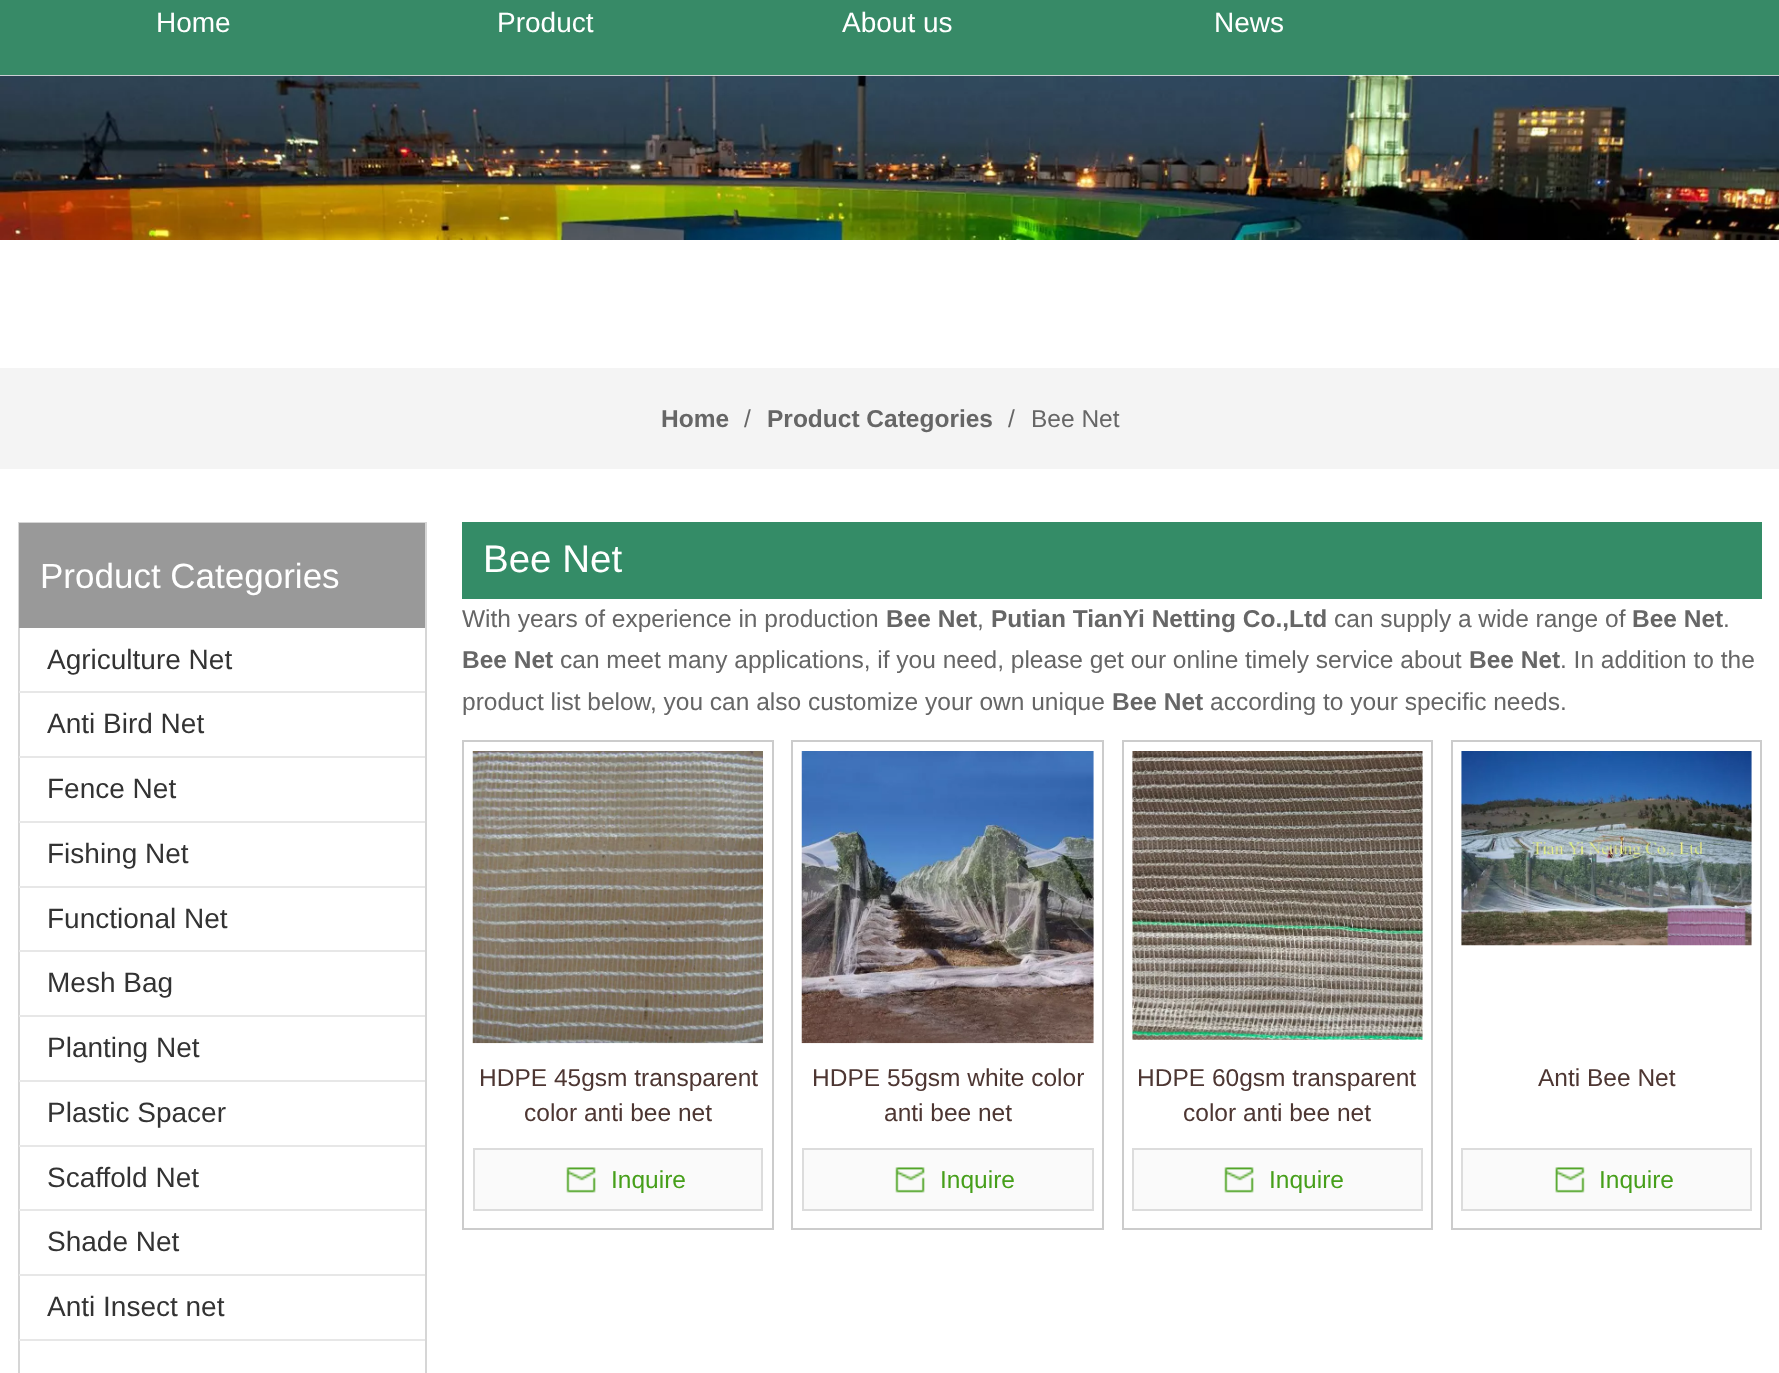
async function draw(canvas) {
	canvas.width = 1779;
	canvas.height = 1373;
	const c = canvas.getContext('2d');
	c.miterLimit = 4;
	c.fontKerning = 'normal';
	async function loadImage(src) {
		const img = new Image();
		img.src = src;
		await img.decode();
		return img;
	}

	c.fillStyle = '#fff';
	c.fillRect(0, 0, 1779, 1373);
	c.fillStyle = '#378a67';
	c.fillRect(0, 0, 1779, 75);
	c.font = '28px Liberation Sans';
	c.fillStyle = '#fff';
	for (const [text, x, y] of [
		['Home', 156, 32],
		['Product', 497, 32],
		['About us', 842, 32],
		['News', 1214, 32],
	]) {
		c.fillText(text, x, y);
	}
	c.drawImage(await loadImage('img1.png'), 0, 75, 1779, 165);
	c.fillStyle = '#f4f4f4';
	c.fillRect(0, 368, 1779, 101);
	c.font = 'bold 24.5px Liberation Sans';
	c.fillStyle = '#666';
	c.fillText('Home', 661, 427);
	c.font = '24.5px Liberation Sans';
	c.fillText('/', 744, 427);
	c.font = 'bold 24.5px Liberation Sans';
	c.fillText('Product Categories', 767, 427);
	c.font = '24.5px Liberation Sans';
	c.fillText('/', 1008, 427);
	c.fillText('Bee Net', 1031, 427);
	c.strokeStyle = '#d6d6d6';
	c.lineWidth = 2;
	c.strokeRect(19, 523, 407, 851);
	c.fillStyle = '#999';
	c.fillRect(19, 523, 406, 105);
	c.font = '35px Liberation Sans';
	c.fillStyle = '#fff';
	c.fillText('Product Categories', 40, 588);
	c.font = '28px Liberation Sans';
	c.fillStyle = '#333';
	c.fillText('Agriculture Net', 47, 669);
	c.fillStyle = '#e7e7e7';
	c.fillRect(19, 691, 406, 2);
	c.fillStyle = '#333';
	c.fillText('Anti Bird Net', 47, 733);
	c.fillStyle = '#e7e7e7';
	c.fillRect(19, 756, 406, 2);
	c.fillStyle = '#333';
	c.fillText('Fence Net', 47, 798);
	c.fillStyle = '#e7e7e7';
	c.fillRect(19, 821, 406, 2);
	c.fillStyle = '#333';
	c.fillText('Fishing Net', 47, 863);
	c.fillStyle = '#e7e7e7';
	c.fillRect(19, 886, 406, 2);
	c.fillStyle = '#333';
	c.fillText('Functional Net', 47, 928);
	c.fillStyle = '#e7e7e7';
	c.fillRect(19, 950, 406, 2);
	c.fillStyle = '#333';
	c.fillText('Mesh Bag', 47, 992);
	c.fillStyle = '#e7e7e7';
	c.fillRect(19, 1015, 406, 2);
	c.fillStyle = '#333';
	c.fillText('Planting Net', 47, 1057);
	c.fillStyle = '#e7e7e7';
	c.fillRect(19, 1080, 406, 2);
	c.fillStyle = '#333';
	c.fillText('Plastic Spacer', 47, 1122);
	c.fillStyle = '#e7e7e7';
	c.fillRect(19, 1145, 406, 2);
	c.fillStyle = '#333';
	c.fillText('Scaffold Net', 47, 1187);
	c.fillStyle = '#e7e7e7';
	c.fillRect(19, 1209, 406, 2);
	c.fillStyle = '#333';
	c.fillText('Shade Net', 47, 1251);
	c.fillStyle = '#e7e7e7';
	c.fillRect(19, 1274, 406, 2);
	c.fillStyle = '#333';
	c.fillText('Anti Insect net', 47, 1316);
	c.fillStyle = '#e7e7e7';
	c.fillRect(19, 1339, 406, 2);
	c.fillStyle = '#348c67';
	c.fillRect(462, 522, 1300, 77);
	c.font = '38.5px Liberation Sans';
	c.fillStyle = '#fff';
	c.fillText('Bee Net', 483, 572);
	c.font = '24.5px Liberation Sans';
	c.fillStyle = '#666';
	c.fillText('With years of experience in production', 462, 627);
	c.font = 'bold 24.5px Liberation Sans';
	c.fillText('Bee Net', 886, 627);
	c.font = '24.5px Liberation Sans';
	c.fillText(',', 977, 627);
	c.font = 'bold 24.5px Liberation Sans';
	c.fillText('Putian TianYi Netting Co.,Ltd', 991, 627);
	c.font = '24.5px Liberation Sans';
	c.fillText('can supply a wide range of', 1334, 627);
	c.font = 'bold 24.5px Liberation Sans';
	c.fillText('Bee Net', 1632, 627);
	c.font = '24.5px Liberation Sans';
	c.fillText('.', 1723, 627);
	c.font = 'bold 24.5px Liberation Sans';
	c.fillText('Bee Net', 462, 668);
	c.font = '24.5px Liberation Sans';
	c.fillText('can meet many applications, if you need, please get our online timely service about', 560, 668);
	c.font = 'bold 24.5px Liberation Sans';
	c.fillText('Bee Net', 1469, 668);
	c.font = '24.5px Liberation Sans';
	c.fillText('. In addition to the', 1560, 668);
	c.fillText('product list below, you can also customize your own unique', 462, 710);
	c.font = 'bold 24.5px Liberation Sans';
	c.fillText('Bee Net', 1112, 710);
	c.font = '24.5px Liberation Sans';
	c.fillText('according to your specific needs.', 1210, 710);
	c.strokeStyle = '#ccc';
	c.strokeRect(463, 741, 310, 488);
	c.drawImage(await loadImage('img2.png'), 472, 751, 291, 293);
	c.fillStyle = '#4d3632';
	c.fillText('HDPE 45gsm transparent', 479, 1086);
	c.fillText('color anti bee net', 524, 1121);
	c.fillStyle = '#fafafa';
	c.beginPath();
	c.rect(474, 1149, 288, 61);
	c.fill();
	c.strokeStyle = '#dcdcdc';
	c.stroke();
	c.drawImage(await loadImage('img3.png'), 566, 1167, 30, 26);
	c.fillStyle = '#469f1a';
	c.fillText('Inquire', 611, 1188);
	c.strokeStyle = '#ccc';
	c.strokeRect(792, 741, 311, 488);
	c.drawImage(await loadImage('img4.png'), 801, 751, 293, 293);
	c.fillStyle = '#4d3632';
	c.fillText('HDPE 55gsm white color', 812, 1086);
	c.fillText('anti bee net', 884, 1121);
	c.fillStyle = '#fafafa';
	c.beginPath();
	c.rect(803, 1149, 290, 61);
	c.fill();
	c.strokeStyle = '#dcdcdc';
	c.stroke();
	c.drawImage(await loadImage('img5.png'), 895, 1167, 30, 26);
	c.fillStyle = '#469f1a';
	c.fillText('Inquire', 940, 1188);
	c.strokeStyle = '#ccc';
	c.strokeRect(1123, 741, 309, 488);
	c.drawImage(await loadImage('img6.png'), 1132, 751, 291, 289);
	c.fillStyle = '#4d3632';
	c.fillText('HDPE 60gsm transparent', 1137, 1086);
	c.fillText('color anti bee net', 1183, 1121);
	c.fillStyle = '#fafafa';
	c.beginPath();
	c.rect(1133, 1149, 289, 61);
	c.fill();
	c.strokeStyle = '#dcdcdc';
	c.stroke();
	c.drawImage(await loadImage('img5.png'), 1224, 1167, 30, 26);
	c.fillStyle = '#469f1a';
	c.fillText('Inquire', 1269, 1188);
	c.strokeStyle = '#ccc';
	c.strokeRect(1452, 741, 309, 488);
	c.drawImage(await loadImage('img7.png'), 1461, 751, 291, 195);
	c.fillStyle = '#4d3632';
	c.fillText('Anti Bee Net', 1538, 1086);
	c.fillStyle = '#fafafa';
	c.beginPath();
	c.rect(1462, 1149, 289, 61);
	c.fill();
	c.strokeStyle = '#dcdcdc';
	c.stroke();
	c.drawImage(await loadImage('img8.png'), 1555, 1167, 30, 26);
	c.fillStyle = '#469f1a';
	c.fillText('Inquire', 1599, 1188);
}

draw(document.querySelector('canvas'));
